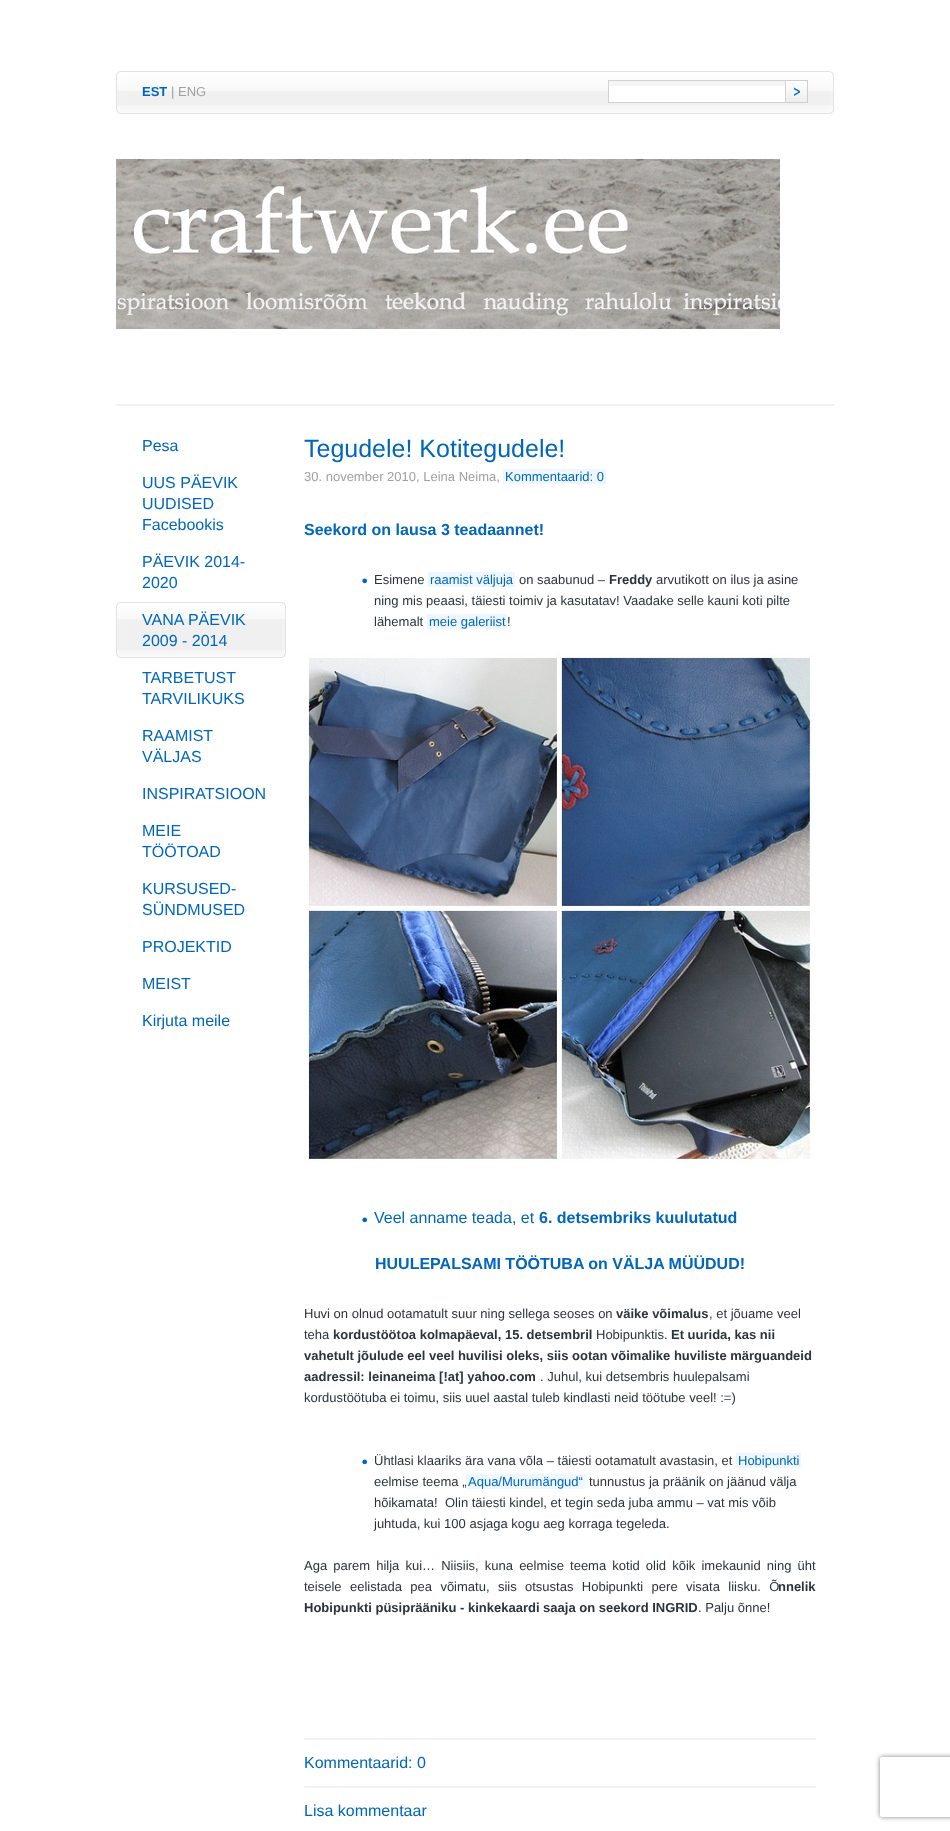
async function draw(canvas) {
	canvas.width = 950;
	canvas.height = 1831;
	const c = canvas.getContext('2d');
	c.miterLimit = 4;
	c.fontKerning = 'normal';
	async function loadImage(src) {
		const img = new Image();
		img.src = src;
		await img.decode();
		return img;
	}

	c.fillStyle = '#fff';
	c.fillRect(0, 0, 950, 1831);
	c.drawImage(await loadImage('img1.png'), 116, 91, 718, 14);
	c.drawImage(await loadImage('img2.png'), 116, 71, 718, 20);
	c.drawImage(await loadImage('img3.png'), 116, 105, 718, 9);
	c.font = 'bold 13px Liberation Sans';
	c.fillStyle = '#06b';
	c.fillText('EST', 142, 96);
	c.font = '13px Liberation Sans';
	c.fillStyle = '#a1a1a1';
	c.fillText('| ENG', 171, 96);
	c.fillStyle = '#fff';
	c.fillRect(609, 86, 176, 16);
	c.fillStyle = '#f5f5f5';
	c.fillRect(608, 81, 178, 5);
	c.strokeStyle = '#d2d2d2';
	c.strokeRect(608.5, 80.5, 177, 22);
	c.drawImage(await loadImage('img4.png'), 786, 80, 22, 23);
	c.fillStyle = '#f1f1f1';
	c.fillRect(116, 404, 718, 2);
	c.drawImage(await loadImage('img5.png'), 116, 159, 664, 170);
	c.font = '16px Liberation Sans';
	c.fillStyle = '#06b';
	for (const [text, x, y] of [
		['Pesa', 142, 451],
		['UUS PÄEVIK', 142, 488],
		['UUDISED', 142, 509],
		['Facebookis', 142, 530],
		['PÄEVIK 2014-', 142, 567],
		['2020', 142, 588],
	]) {
		c.fillText(text, x, y);
	}
	c.drawImage(await loadImage('img6.png'), 116, 619, 170, 31);
	c.drawImage(await loadImage('img7.png'), 116, 602, 170, 17);
	c.drawImage(await loadImage('img8.png'), 116, 650, 170, 8);
	for (const [text, x, y] of [
		['VANA PÄEVIK', 142, 625],
		['2009 - 2014', 142, 646],
		['TARBETUST', 142, 683],
		['TARVILIKUKS', 142, 704],
		['RAAMIST', 142, 741],
		['VÄLJAS', 142, 762],
		['INSPIRATSIOON', 142, 799],
		['MEIE', 142, 836],
		['TÖÖTOAD', 142, 857],
		['KURSUSED-', 142, 894],
		['SÜNDMUSED', 142, 915],
		['PROJEKTID', 142, 952],
		['MEIST', 142, 989],
		['Kirjuta meile', 142, 1026],
	]) {
		c.fillText(text, x, y);
	}
	c.font = '25px Liberation Sans';
	c.fillText('Tegudele! Kotitegudele!', 304, 457);
	c.font = '13px Liberation Sans';
	c.fillStyle = '#a1a1a1';
	c.fillText('30. november 2010, Leina Neima,', 304, 481);
	c.fillStyle = '#eef7ff';
	c.fillRect(503, 469, 103, 15);
	c.fillStyle = '#06b';
	c.fillText('Kommentaarid: 0', 505, 481);
	c.font = 'bold 16px Liberation Sans';
	c.fillText('Seekord on lausa 3 teadaannet!', 304, 535);
	c.drawImage(await loadImage('img9.png'), 362, 578, 5, 6);
	c.font = '13px Liberation Sans';
	c.fillStyle = '#29343b';
	c.fillText('Esimene', 374, 584);
	c.fillStyle = '#eef7ff';
	c.fillRect(428, 572, 87, 15);
	c.fillStyle = '#06b';
	c.fillText('raamist väljuja', 430, 584);
	c.fillStyle = '#29343b';
	c.fillText('on saabunud –', 519, 584);
	c.font = 'bold 13px Liberation Sans';
	c.fillText('Freddy', 609, 584);
	c.font = '13px Liberation Sans';
	for (const [text, x, y] of [
		['arvutikott on ilus ja asine', 656, 584],
		['ning mis peaasi, täiesti toimiv ja kasutatav! Vaadake selle kauni koti pilte', 374, 605],
		['lähemalt', 374, 626],
	]) {
		c.fillText(text, x, y);
	}
	c.fillStyle = '#eef7ff';
	c.fillRect(427, 614, 80, 15);
	c.fillStyle = '#06b';
	c.fillText('meie galeriist', 429, 626);
	c.fillStyle = '#29343b';
	c.fillText('!', 507, 626);
	c.drawImage(await loadImage('img10.png'), 304, 653, 510, 510);
	c.drawImage(await loadImage('img9.png'), 362, 1217, 5, 6);
	c.font = '16px Liberation Sans';
	c.fillStyle = '#06b';
	c.fillText('Veel anname teada, et', 374, 1223);
	c.font = 'bold 16px Liberation Sans';
	c.fillText('6. detsembriks kuulutatud', 539, 1223);
	c.fillText('HUULEPALSAMI TÖÖTUBA on VÄLJA MÜÜDUD!', 375, 1269);
	c.font = '13px Liberation Sans';
	c.fillStyle = '#29343b';
	c.fillText('Huvi on olnud ootamatult suur ning sellega seoses on', 304, 1318);
	c.font = 'bold 13px Liberation Sans';
	c.fillText('väike võimalus', 616, 1318);
	c.font = '13px Liberation Sans';
	c.fillText(', et jõuame veel', 709, 1318);
	c.fillText('teha', 304, 1339);
	c.font = 'bold 13px Liberation Sans';
	c.fillText('kordustöötoa kolmapäeval, 15. detsembril', 333, 1339);
	c.font = '13px Liberation Sans';
	c.fillText('Hobipunktis.', 596, 1339);
	c.font = 'bold 13px Liberation Sans';
	for (const [text, x, y] of [
		['Et uurida, kas nii', 671, 1339],
		['vahetult jõulude eel veel huvilisi oleks, siis ootan võimalike huviliste märguandeid', 304, 1360],
		['aadressil: leinaneima [!at] yahoo.com', 304, 1381],
	]) {
		c.fillText(text, x, y);
	}
	c.font = '13px Liberation Sans';
	c.fillText('. Juhul, kui detsembris huulepalsami', 540, 1381);
	c.fillText('kordustöötuba ei toimu, siis uuel aastal tuleb kindlasti neid töötube veel! :=)', 304, 1402);
	c.drawImage(await loadImage('img9.png'), 362, 1459, 5, 6);
	c.fillText('Ühtlasi klaariks ära vana võla – täiesti ootamatult avastasin, et', 374, 1465);
	c.fillStyle = '#eef7ff';
	c.fillRect(736, 1453, 65, 15);
	c.fillStyle = '#06b';
	c.fillText('Hobipunkti', 738, 1465);
	c.fillStyle = '#29343b';
	c.fillText('eelmise teema „', 374, 1486);
	c.fillStyle = '#eef7ff';
	c.fillRect(466, 1474, 119, 15);
	c.fillStyle = '#06b';
	c.fillText('Aqua/Murumängud“', 468, 1486);
	c.fillStyle = '#29343b';
	for (const [text, x, y] of [
		['tunnustus ja präänik on jäänud välja', 589, 1486],
		['hõikamata!', 374, 1507],
		['Olin täiesti kindel, et tegin seda juba ammu – vat mis võib', 445, 1507],
		['juhtuda, kui 100 asjaga kogu aeg korraga tegeleda.', 374, 1528],
	]) {
		c.fillText(text, x, y);
	}
	c.wordSpacing = '2.5px';
	c.fillText('Aga parem hilja kui… Niisiis, kuna eelmise teema kotid olid kõik imekaunid ning üht', 304, 1570);
	c.wordSpacing = '4.75px';
	c.fillText('teisele eelistada pea võimatu, siis otsustas Hobipunkti pere visata liisku. Õ', 304, 1591);
	c.wordSpacing = '0px';
	c.font = 'bold 13px Liberation Sans';
	c.fillText('nnelik', 778, 1591);
	c.fillText('Hobipunkti püsiprääniku - kinkekaardi saaja on seekord INGRID', 304, 1612);
	c.font = '13px Liberation Sans';
	c.fillText('. Palju õnne!', 698, 1612);
	c.fillStyle = '#f1f1f1';
	c.fillRect(304, 1738, 512, 2);
	c.font = '16px Liberation Sans';
	c.fillStyle = '#06b';
	c.fillText('Kommentaarid: 0', 304, 1768);
	c.save();
	c.beginPath();
	c.moveTo(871, 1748);
	c.lineTo(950, 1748);
	c.lineTo(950, 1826);
	c.lineTo(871, 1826);
	c.closePath();
	c.moveTo(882, 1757);
	c.lineTo(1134, 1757);
	c.bezierCurveTo(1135, 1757, 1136, 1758, 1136, 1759);
	c.lineTo(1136, 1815);
	c.bezierCurveTo(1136, 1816, 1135, 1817, 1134, 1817);
	c.lineTo(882, 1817);
	c.bezierCurveTo(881, 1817, 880, 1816, 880, 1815);
	c.lineTo(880, 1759);
	c.bezierCurveTo(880, 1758, 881, 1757, 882, 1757);
	c.closePath();
	c.clip('evenodd');
	c.fillStyle = '#808080';
	c.filter = 'blur(2.5px)';
	c.beginPath();
	c.roundRect(880, 1757, 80, 60, 2);
	c.fill();
	c.filter = 'none';
	c.restore();
	c.fillStyle = '#f1f1f1';
	c.fillRect(304, 1786, 512, 2);
	c.fillStyle = '#06b';
	c.fillText('Lisa kommentaar', 304, 1816);
}

draw(document.querySelector('canvas'));
